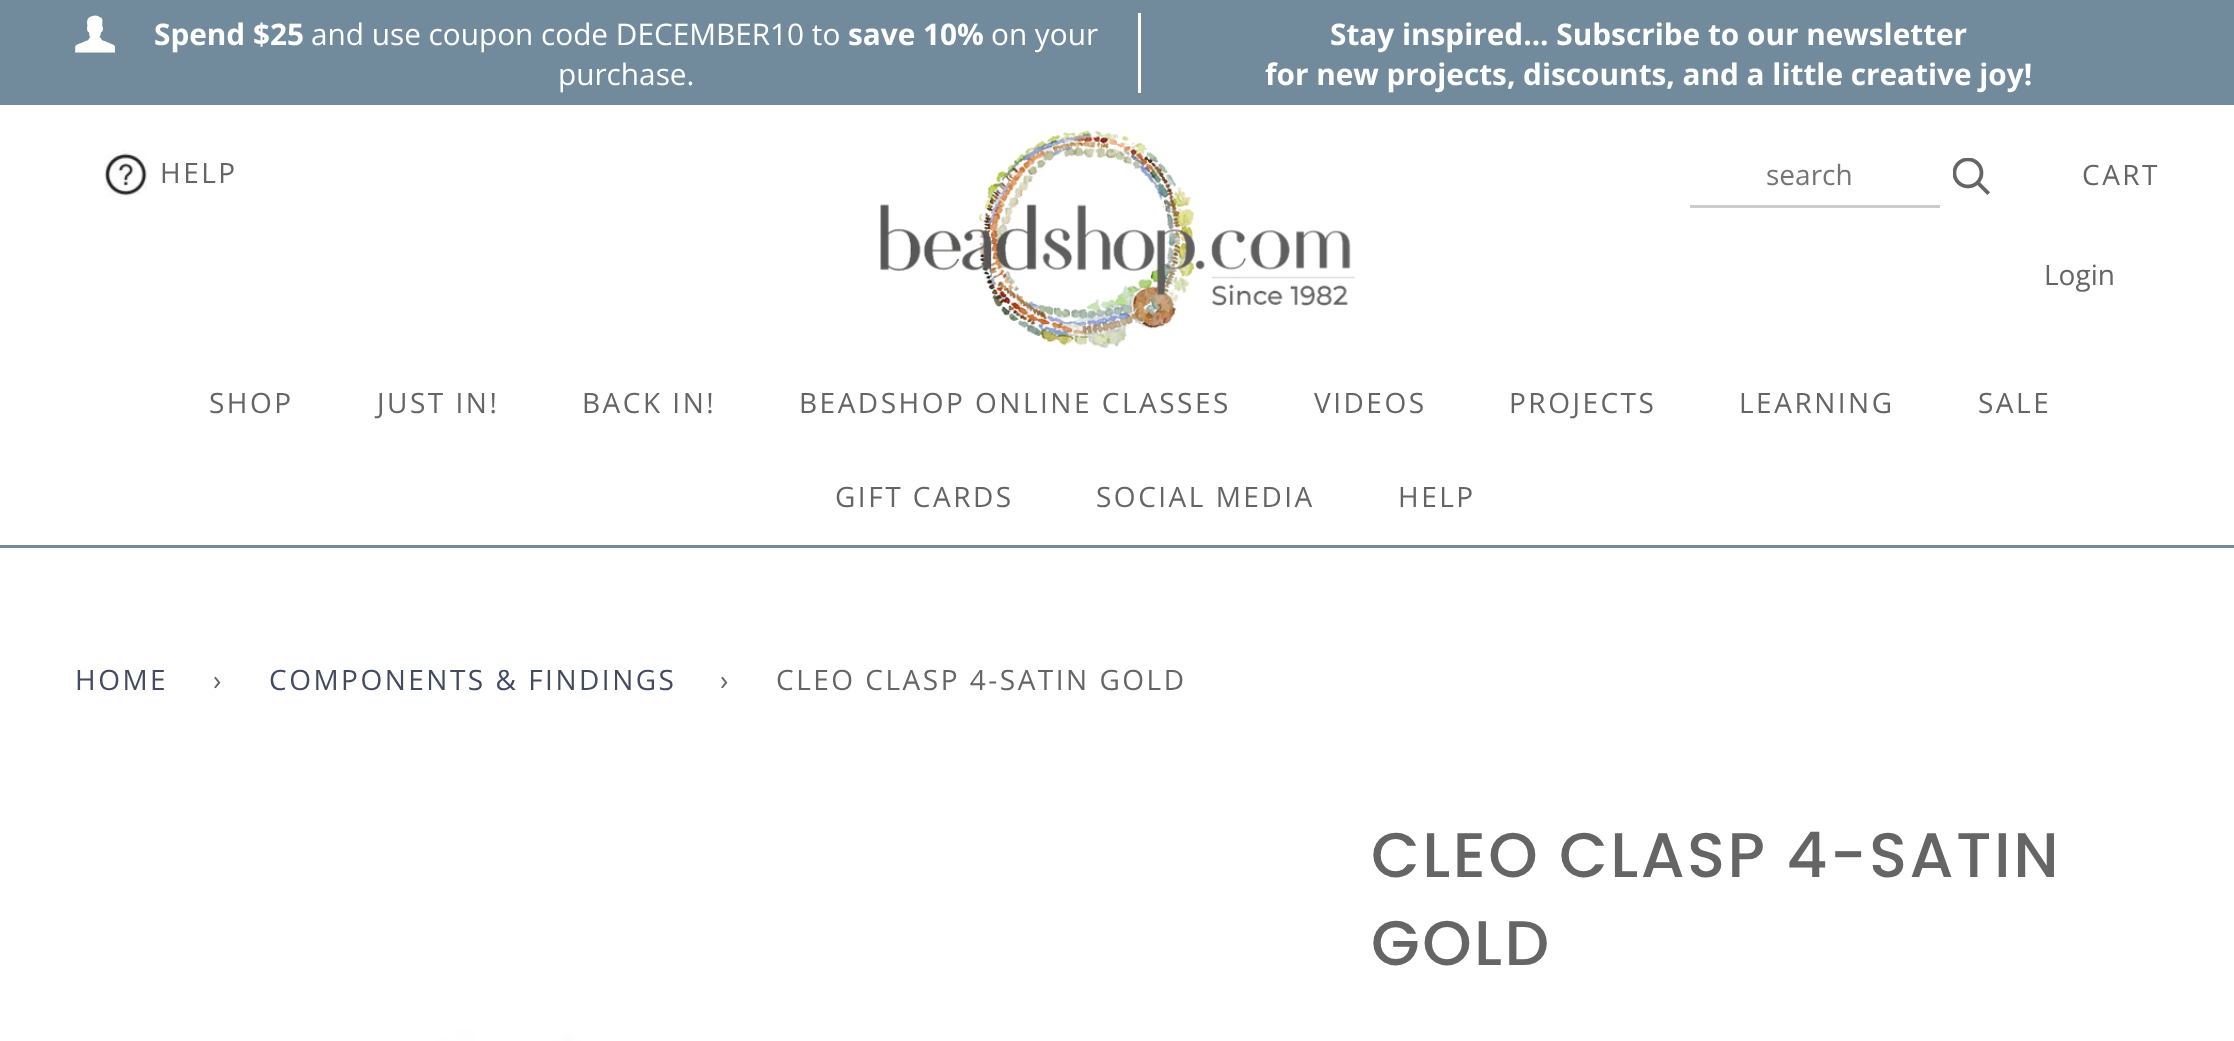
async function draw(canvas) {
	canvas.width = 2234;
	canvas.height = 1041;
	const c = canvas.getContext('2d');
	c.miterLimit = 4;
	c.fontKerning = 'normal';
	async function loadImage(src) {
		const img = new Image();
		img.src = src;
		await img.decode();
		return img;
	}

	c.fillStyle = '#fff';
	c.fillRect(0, 0, 2234, 1041);
	c.fillStyle = '#718b9c';
	c.fillRect(0, 0, 2234, 105);
	c.drawImage(await loadImage('img1.png'), 75, 15, 40, 38);
	c.font = 'bold 29.75px Open Sans';
	c.fillStyle = '#fff';
	c.fillText('Spend $25', 154, 45);
	c.font = '29.75px Open Sans';
	c.fillText('and use coupon code DECEMBER10 to', 311, 45);
	c.font = 'bold 29.75px Open Sans';
	c.fillText('save 10%', 848, 45);
	c.font = '29.75px Open Sans';
	c.fillText('on your', 991, 45);
	c.fillText('purchase.', 558, 85);
	c.fillRect(1138, 13, 3, 80);
	c.font = 'bold 29.75px Open Sans';
	c.fillText('Stay inspired... Subscribe to our newsletter', 1330, 45);
	c.fillText('for new projects, discounts, and a little creative joy!', 1265, 85);
	c.fillStyle = '#718b9c';
	c.fillRect(0, 545, 2234, 3);
	c.drawImage(await loadImage('img2.png'), 104, 150, 43, 47);
	c.letterSpacing = '2.5px';
	c.font = '28px Open Sans';
	c.fillStyle = '#656565';
	c.fillText('HELP', 160, 183);
	c.drawImage(await loadImage('img3.png'), 880, 130, 475, 219);
	c.fillStyle = '#ccc';
	c.fillRect(1690, 205, 250, 3);
	c.letterSpacing = '0px';
	c.fillStyle = '#757575';
	c.fillText('search', 1766, 185);
	c.drawImage(await loadImage('img4.png'), 1953, 158, 37, 37);
	c.letterSpacing = '2.5px';
	c.fillStyle = '#656565';
	c.fillText('CART', 2082, 185);
	c.letterSpacing = '0px';
	c.fillText('Login', 2044, 285);
	c.letterSpacing = '2.5px';
	for (const [text, x, y] of [
		['SHOP', 209, 413],
		['JUST IN!', 377, 413],
		['BACK IN!', 582, 413],
		['BEADSHOP ONLINE CLASSES', 799, 413],
		['VIDEOS', 1314, 413],
		['PROJECTS', 1509, 413],
		['LEARNING', 1739, 413],
		['SALE', 1978, 413],
		['GIFT CARDS', 835, 507],
		['SOCIAL MEDIA', 1096, 507],
		['HELP', 1398, 507],
	]) {
		c.fillText(text, x, y);
	}
	c.fillStyle = '#444a60';
	c.fillText('HOME', 75, 690);
	c.fillStyle = '#656565';
	c.fillText('›', 213, 690);
	c.fillStyle = '#444a60';
	c.fillText('COMPONENTS & FINDINGS', 269, 690);
	c.fillStyle = '#656565';
	c.fillText('›', 720, 690);
	c.fillText('CLEO CLASP 4-SATIN GOLD', 776, 690);
	c.drawImage(await loadImage('img5.png'), 75, 812, 1220, 229);
	c.font = '500 63px Poppins';
	c.fillText('CLEO CLASP 4-SATIN', 1371, 877);
	c.fillText('GOLD', 1371, 965);
}

draw(document.querySelector('canvas'));
